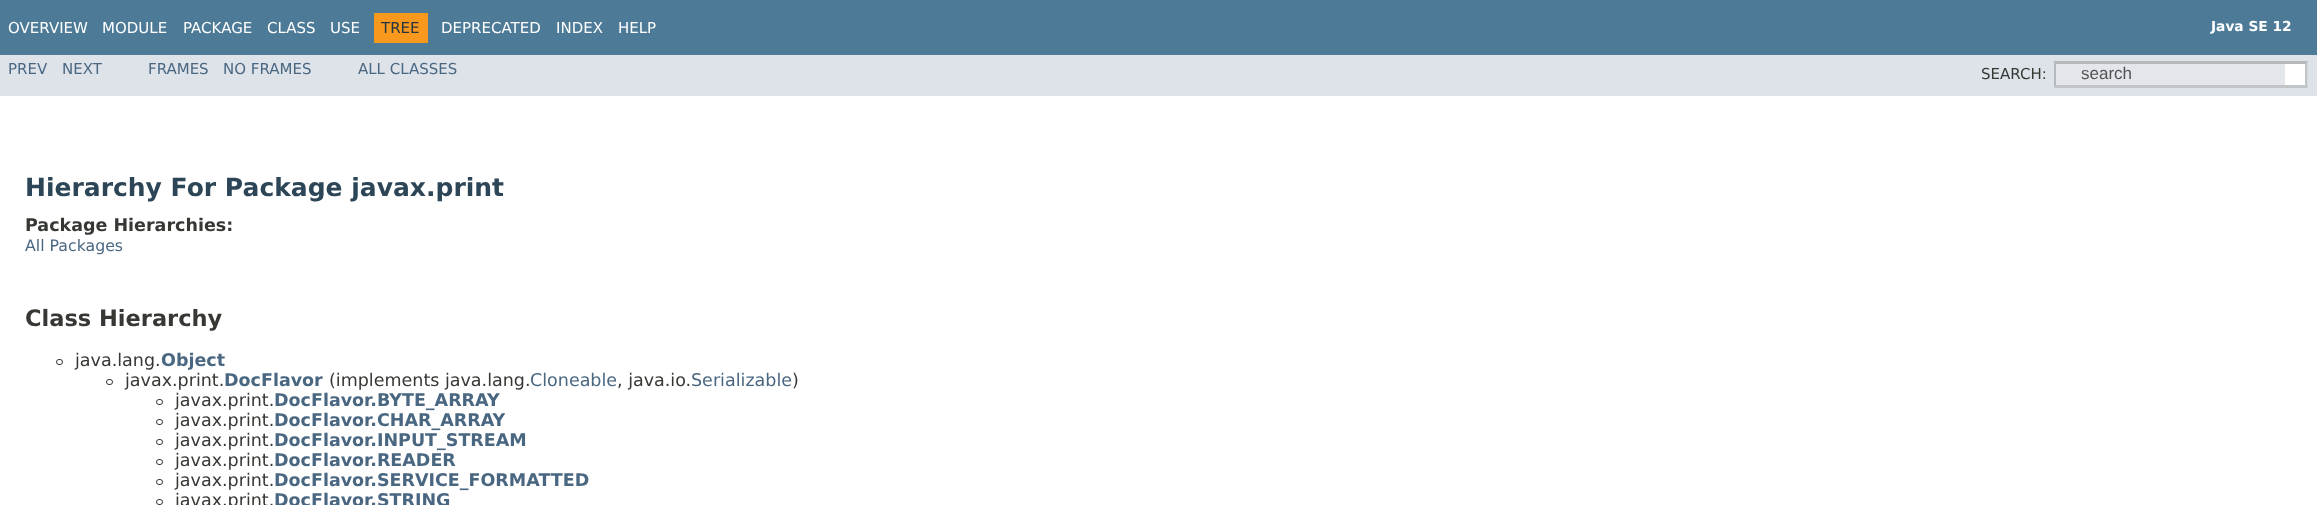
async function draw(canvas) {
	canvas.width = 2317;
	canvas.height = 505;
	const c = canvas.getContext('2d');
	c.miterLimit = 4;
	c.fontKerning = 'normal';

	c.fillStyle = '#fff';
	c.fillRect(0, 0, 2317, 505);
	c.fillStyle = '#4d7a97';
	c.fillRect(0, 0, 2317, 55);
	c.font = '15px DejaVu Sans';
	c.fillStyle = '#fff';
	for (const [text, x, y] of [
		['OVERVIEW', 8, 33],
		['MODULE', 102, 33],
		['PACKAGE', 183, 33],
		['CLASS', 267, 33],
		['USE', 330, 33],
	]) {
		c.fillText(text, x, y);
	}
	c.fillStyle = '#f8981d';
	c.fillRect(374, 13, 54, 30);
	c.fillStyle = '#253441';
	c.fillText('TREE', 381, 33);
	c.fillStyle = '#fff';
	for (const [text, x, y] of [
		['DEPRECATED', 441, 33],
		['INDEX', 556, 33],
		['HELP', 618, 33],
	]) {
		c.fillText(text, x, y);
	}
	c.font = 'bold 13.75px DejaVu Sans';
	c.fillText('Java SE 12', 2211, 31);
	c.fillStyle = '#dee3e9';
	c.fillRect(0, 55, 2317, 41);
	c.font = '15px DejaVu Sans';
	c.fillStyle = '#4a6782';
	for (const [text, x, y] of [
		['PREV', 8, 74],
		['NEXT', 62, 74],
		['FRAMES', 148, 74],
		['NO FRAMES', 223, 74],
		['ALL CLASSES', 358, 74],
	]) {
		c.fillText(text, x, y);
	}
	c.fillStyle = '#353833';
	c.fillText('SEARCH:', 1981, 79);
	c.fillStyle = '#e3e7eb';
	c.fillRect(2054, 61, 254, 27);
	c.fillStyle = '#b7b9bc';
	c.beginPath();
	c.moveTo(2054, 61);
	c.lineTo(2308, 61);
	c.lineTo(2305, 64);
	c.lineTo(2056, 64);
	c.closePath();
	c.fill();
	c.fillStyle = '#7676764d';
	c.beginPath();
	c.moveTo(2307.5, 61);
	c.lineTo(2307.5, 87.5);
	c.lineTo(2305, 85);
	c.lineTo(2305, 64);
	c.closePath();
	c.fill();
	c.beginPath();
	c.moveTo(2308, 88);
	c.lineTo(2054, 88);
	c.lineTo(2056, 85);
	c.lineTo(2305, 85);
	c.closePath();
	c.fill();
	c.fillStyle = '#4f4f4f4d';
	c.beginPath();
	c.moveTo(2054, 87.5);
	c.lineTo(2054, 61);
	c.lineTo(2056, 64);
	c.lineTo(2056, 85);
	c.closePath();
	c.fill();
	c.font = '17px Liberation Sans';
	c.fillStyle = '#545454';
	c.fillText('search', 2081, 79);
	c.fillStyle = '#fff';
	c.fillRect(2285, 64, 20, 21);
	c.font = 'bold 25px DejaVu Sans';
	c.fillStyle = '#2c4557';
	c.fillText('Hierarchy For Package javax.print', 25, 196);
	c.font = 'bold 17.5px DejaVu Sans';
	c.fillStyle = '#353833';
	c.fillText('Package Hierarchies:', 25, 231);
	c.font = '15.75px DejaVu Sans';
	c.fillStyle = '#4a6782';
	c.fillText('All Packages', 25, 251);
	c.font = 'bold 22.5px DejaVu Sans';
	c.fillStyle = '#353833';
	c.fillText('Class Hierarchy', 25, 326);
	c.beginPath();
	c.roundRect(56.5, 359.5, 6, 5, 2.5);
	c.strokeStyle = '#353833';
	c.stroke();
	c.font = '17.5px DejaVu Sans';
	c.fillText('java.lang.', 75, 366);
	c.font = 'bold 17.5px DejaVu Sans';
	c.fillStyle = '#4a6782';
	c.fillText('Object', 161, 366);
	c.beginPath();
	c.roundRect(106.5, 379.5, 6, 5, 2.5);
	c.stroke();
	c.font = '17.5px DejaVu Sans';
	c.fillStyle = '#353833';
	c.fillText('javax.print.', 125, 386);
	c.font = 'bold 17.5px DejaVu Sans';
	c.fillStyle = '#4a6782';
	c.fillText('DocFlavor', 224, 386);
	c.font = '17.5px DejaVu Sans';
	c.fillStyle = '#353833';
	c.fillText('(implements java.lang.', 329, 386);
	c.fillStyle = '#4a6782';
	c.fillText('Cloneable', 530, 386);
	c.fillStyle = '#353833';
	c.fillText(', java.io.', 617, 386);
	c.fillStyle = '#4a6782';
	c.fillText('Serializable', 691, 386);
	c.fillStyle = '#353833';
	c.fillText(')', 792, 386);
	c.beginPath();
	c.roundRect(156.5, 399.5, 6, 5, 2.5);
	c.stroke();
	c.fillText('javax.print.', 175, 406);
	c.font = 'bold 17.5px DejaVu Sans';
	c.fillStyle = '#4a6782';
	c.fillText('DocFlavor.BYTE_ARRAY', 274, 406);
	c.beginPath();
	c.roundRect(156.5, 419.5, 6, 5, 2.5);
	c.stroke();
	c.font = '17.5px DejaVu Sans';
	c.fillStyle = '#353833';
	c.fillText('javax.print.', 175, 426);
	c.font = 'bold 17.5px DejaVu Sans';
	c.fillStyle = '#4a6782';
	c.fillText('DocFlavor.CHAR_ARRAY', 274, 426);
	c.beginPath();
	c.roundRect(156.5, 439.5, 6, 5, 2.5);
	c.stroke();
	c.font = '17.5px DejaVu Sans';
	c.fillStyle = '#353833';
	c.fillText('javax.print.', 175, 446);
	c.font = 'bold 17.5px DejaVu Sans';
	c.fillStyle = '#4a6782';
	c.fillText('DocFlavor.INPUT_STREAM', 274, 446);
	c.beginPath();
	c.roundRect(156.5, 459.5, 6, 5, 2.5);
	c.stroke();
	c.font = '17.5px DejaVu Sans';
	c.fillStyle = '#353833';
	c.fillText('javax.print.', 175, 466);
	c.font = 'bold 17.5px DejaVu Sans';
	c.fillStyle = '#4a6782';
	c.fillText('DocFlavor.READER', 274, 466);
	c.beginPath();
	c.roundRect(156.5, 479.5, 6, 5, 2.5);
	c.stroke();
	c.font = '17.5px DejaVu Sans';
	c.fillStyle = '#353833';
	c.fillText('javax.print.', 175, 486);
	c.font = 'bold 17.5px DejaVu Sans';
	c.fillStyle = '#4a6782';
	c.fillText('DocFlavor.SERVICE_FORMATTED', 274, 486);
	c.beginPath();
	c.roundRect(156.5, 499.5, 6, 5, 2.5);
	c.stroke();
	c.font = '17.5px DejaVu Sans';
	c.fillStyle = '#353833';
	c.fillText('javax.print.', 175, 506);
	c.font = 'bold 17.5px DejaVu Sans';
	c.fillStyle = '#4a6782';
	c.fillText('DocFlavor.STRING', 274, 506);
}

draw(document.querySelector('canvas'));
